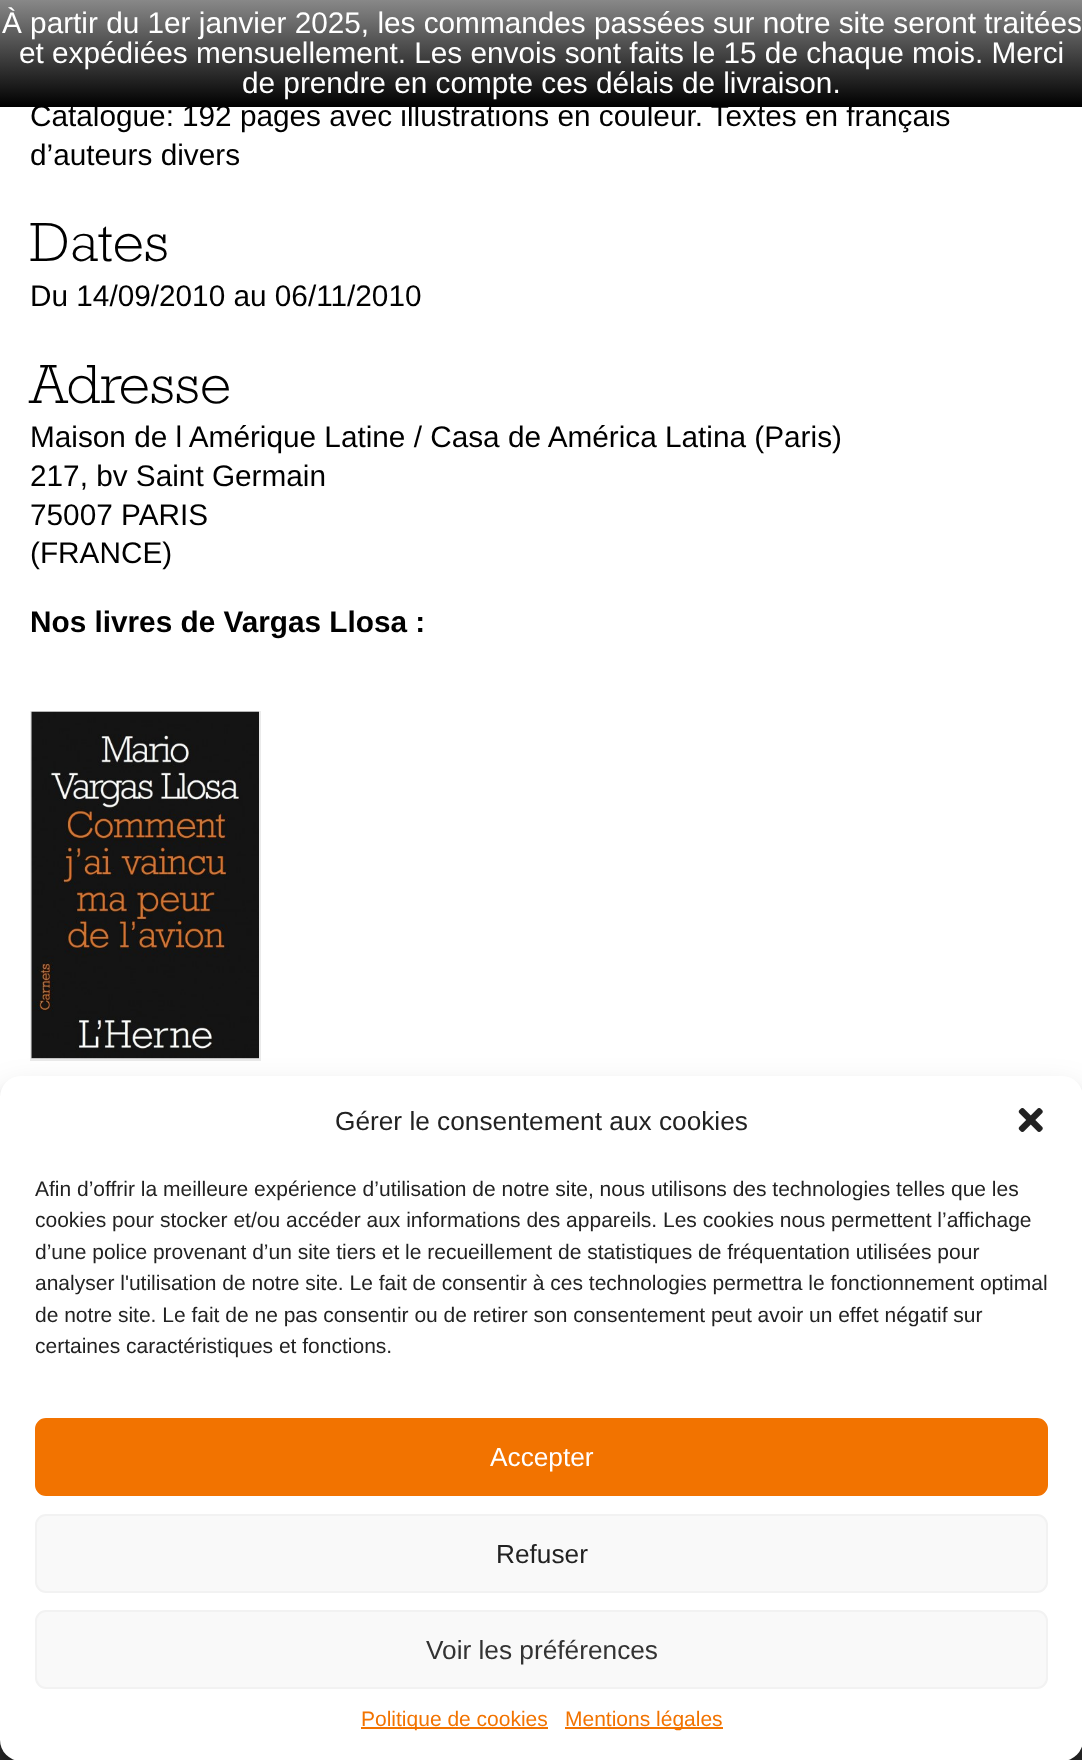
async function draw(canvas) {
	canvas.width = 1082;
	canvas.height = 1760;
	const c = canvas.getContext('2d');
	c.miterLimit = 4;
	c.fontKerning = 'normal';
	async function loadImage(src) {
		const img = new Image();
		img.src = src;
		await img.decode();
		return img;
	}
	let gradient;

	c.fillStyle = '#fff';
	c.fillRect(0, 0, 1082, 1760);
	c.font = '29.75px Liberation Sans';
	c.fillStyle = '#000';
	c.fillText('Catalogue:', 30, 126);
	c.fillText('192 pages avec illustrations en couleur. Textes en français', 182, 126);
	gradient = c.createLinearGradient(542, 0, 542, 107);
	gradient.addColorStop(0, '#888');
	gradient.addColorStop(1, '#000');
	c.fillStyle = gradient;
	c.fillRect(0, 0, 1082, 107);
	c.fillStyle = '#fff';
	for (const [text, x, y] of [
		['À partir du 1er janvier 2025, les commandes passées sur notre site seront traitées', 2, 33],
		['et expédiées mensuellement. Les envois sont faits le 15 de chaque mois. Merci', 19, 63],
		['de prendre en compte ces délais de livraison.', 242, 93],
	]) {
		c.fillText(text, x, y);
	}
	c.fillStyle = '#000';
	c.fillText('d’auteurs divers', 30, 165);
	c.font = '300 56px Rockwell';
	c.fillText('Dates', 30, 261);
	c.font = '29.75px Liberation Sans';
	c.fillText('Du 14/09/2010 au 06/11/2010', 30, 306);
	c.font = '300 56px Rockwell';
	c.fillText('Adresse', 30, 403);
	c.font = '29.75px Liberation Sans';
	for (const [text, x, y] of [
		['Maison de l Amérique Latine / Casa de América Latina (Paris)', 30, 447],
		['217, bv Saint Germain', 30, 486],
		['75007 PARIS', 30, 525],
		['(FRANCE)', 30, 563],
	]) {
		c.fillText(text, x, y);
	}
	c.font = 'bold 29.75px Liberation Sans';
	c.fillText('Nos livres de Vargas Llosa :', 30, 632);
	c.strokeStyle = '#eaeaea';
	c.lineWidth = 2;
	c.strokeRect(31, 712, 229, 348);
	c.drawImage(await loadImage('img1.png'), 31, 711, 228, 348);
	c.fillStyle = '#2d2d2d';
	c.fillRect(0, 1740, 1082, 20);
	c.fillStyle = '#0000003b';
	c.filter = 'blur(5px)';
	c.beginPath();
	c.roundRect(0, 1087, 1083, 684, 21);
	c.fill();
	c.filter = 'none';
	c.fillStyle = '#00000030';
	c.filter = 'blur(17.5px)';
	c.beginPath();
	c.roundRect(0, 1094, 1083, 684, 21);
	c.fill();
	c.filter = 'none';
	c.fillStyle = '#fff';
	c.beginPath();
	c.roundRect(0, 1076, 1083, 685, 21);
	c.fill();
	c.font = '26.25px Liberation Sans';
	c.fillStyle = '#222';
	c.fillText('Gérer le consentement aux cookies', 335, 1130);
	c.drawImage(await loadImage('img2.png'), 1018, 1108, 25, 24);
	c.font = '21px Liberation Sans';
	for (const [text, x, y] of [
		['Afin d’offrir la meilleure expérience d’utilisation de notre site, nous utilisons des technologies telles que les', 35, 1196],
		['cookies pour stocker et/ou accéder aux informations des appareils. Les cookies nous permettent l’affichage', 35, 1227],
		['d’une police provenant d’un site tiers et le recueillement de statistiques de fréquentation utilisées pour', 35, 1259],
		['analyser l\'utilisation de notre site. Le fait de consentir à ces technologies permettra le fonctionnement optimal', 35, 1290],
		['de notre site. Le fait de ne pas consentir ou de retirer son consentement peut avoir un effet négatif sur', 35, 1322],
		['certaines caractéristiques et fonctions.', 35, 1353],
	]) {
		c.fillText(text, x, y);
	}
	c.fillStyle = '#f27300';
	c.beginPath();
	c.roundRect(36, 1419, 1011, 76, 10);
	c.fill();
	c.strokeStyle = '#f27300';
	c.stroke();
	c.font = '26.25px Liberation Sans';
	c.fillStyle = '#fff';
	c.fillText('Accepter', 490, 1466);
	c.fillStyle = '#f9f9f9';
	c.beginPath();
	c.roundRect(36, 1515, 1011, 77, 10);
	c.fill();
	c.strokeStyle = '#f2f2f2';
	c.stroke();
	c.fillStyle = '#222';
	c.fillText('Refuser', 496, 1563);
	c.fillStyle = '#f9f9f9';
	c.beginPath();
	c.roundRect(36, 1611, 1011, 77, 10);
	c.fill();
	c.stroke();
	c.fillStyle = '#333';
	c.fillText('Voir les préférences', 426, 1659);
	c.fillStyle = '#f27300';
	c.fillRect(361, 1727, 187, 2);
	c.font = '21px Liberation Sans';
	c.fillText('Politique de cookies', 361, 1726);
	c.fillRect(565, 1727, 158, 2);
	c.fillText('Mentions légales', 565, 1726);
}

draw(document.querySelector('canvas'));
